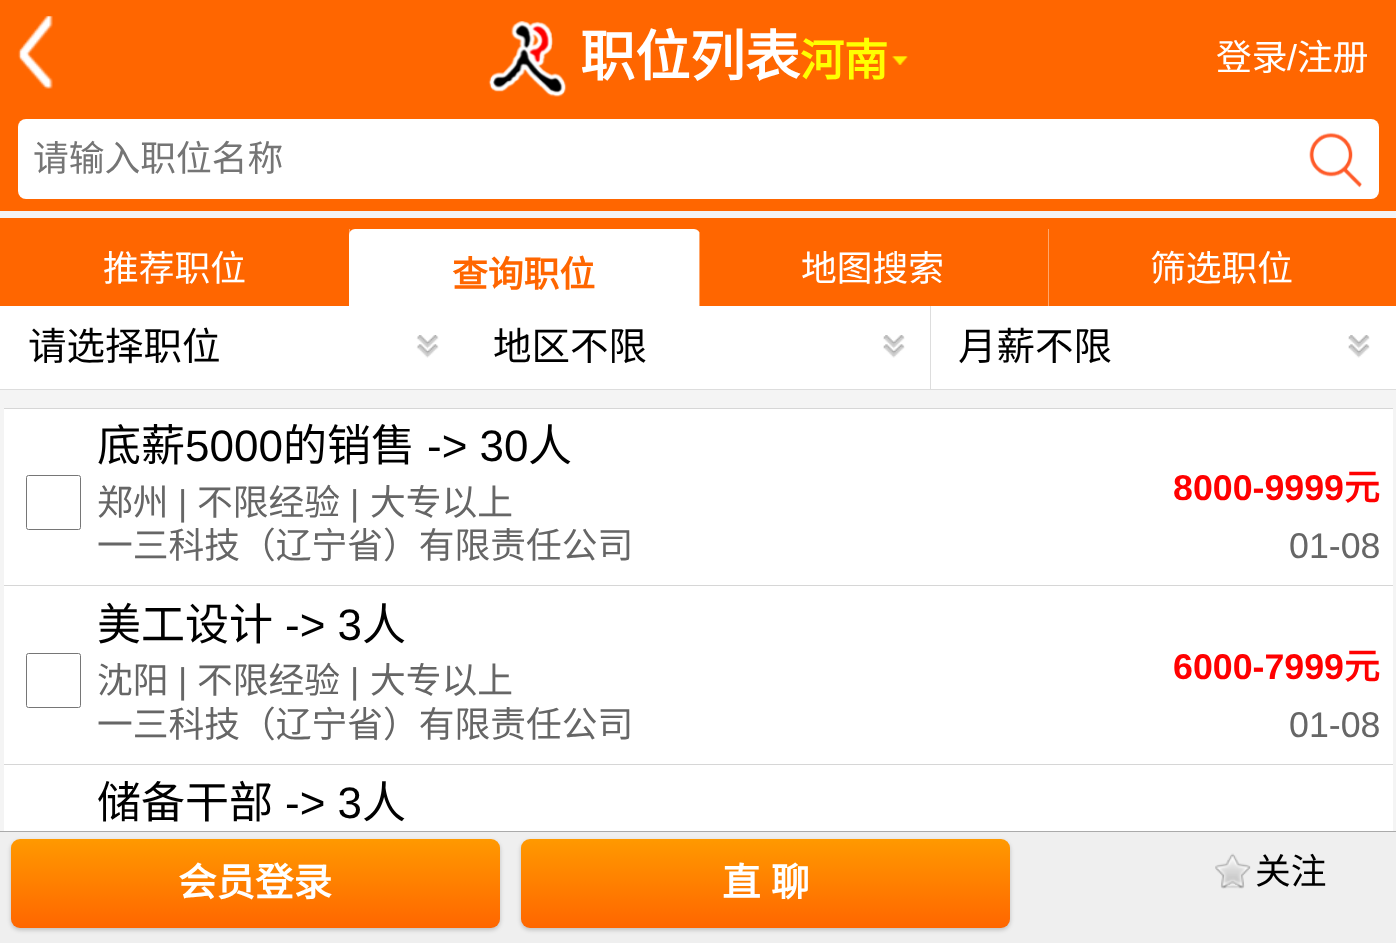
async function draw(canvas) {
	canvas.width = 1396;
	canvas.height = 943;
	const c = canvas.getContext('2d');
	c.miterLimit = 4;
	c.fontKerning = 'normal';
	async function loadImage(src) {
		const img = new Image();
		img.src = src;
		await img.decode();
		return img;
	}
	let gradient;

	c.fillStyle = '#f4f4f4';
	c.fillRect(0, 0, 1396, 943);
	c.fillStyle = '#f60';
	c.fillRect(0, 0, 1396, 211);
	c.drawImage(await loadImage('img1.png'), 18, 16, 35, 73);
	c.drawImage(await loadImage('img2.png'), 488, 21, 79, 76);
	c.font = 'bold 55px Noto Sans CJK SC';
	c.fillStyle = '#fff';
	c.fillText('职位列表', 580, 76);
	c.font = 'bold 44px Noto Sans CJK SC';
	c.fillStyle = '#ff0';
	c.fillText('河南', 800, 76);
	c.drawImage(await loadImage('img3.png'), 892, 56, 16, 9);
	c.font = '35.75px Noto Sans CJK SC';
	c.fillStyle = '#fff';
	c.fillText('登录', 1216, 70);
	c.font = '35.75px Liberation Sans';
	c.fillText('/', 1287, 70);
	c.font = '35.75px Noto Sans CJK SC';
	c.fillText('注册', 1297, 70);
	c.beginPath();
	c.roundRect(18, 119, 1361, 80, 8);
	c.fill();
	c.fillStyle = '#757575';
	c.fillText('请输入职位名称', 33, 171);
	c.drawImage(await loadImage('img4.png'), 1309, 132, 53, 56);
	c.fillStyle = '#f60';
	c.fillRect(0, 218, 1396, 88);
	c.fillStyle = '#ffa76c';
	c.fillRect(349, 229, 1, 6);
	c.fillStyle = '#fff';
	c.fillText('推荐职位', 103, 281);
	c.beginPath();
	c.roundRect(349, 229, 351, 77, [6, 6, 0, 0]);
	c.fill();
	c.fillStyle = '#ffa76c';
	c.fillRect(699, 233, 1, 73);
	c.font = 'bold 35.75px Noto Sans CJK SC';
	c.fillStyle = '#f60';
	c.fillText('查询职位', 452, 287);
	c.fillStyle = '#ffa76c';
	c.fillRect(1048, 229, 1, 77);
	c.font = '35.75px Noto Sans CJK SC';
	c.fillStyle = '#fff';
	c.fillText('地图搜索', 801, 281);
	c.fillText('筛选职位', 1150, 281);
	c.fillRect(0, 306, 1396, 83);
	c.fillStyle = '#ddd';
	c.fillRect(0, 389, 1396, 1);
	c.drawImage(await loadImage('img5.png'), 416, 335, 23, 23);
	c.font = '38.5px Noto Sans CJK SC';
	c.fillStyle = '#000';
	c.fillText('请选择职位', 28, 360);
	c.drawImage(await loadImage('img6.png'), 883, 335, 22, 23);
	c.fillText('地区不限', 493, 360);
	c.fillStyle = '#ddd';
	c.fillRect(930, 306, 1, 83);
	c.drawImage(await loadImage('img6.png'), 1348, 335, 22, 23);
	c.fillStyle = '#000';
	c.fillText('月薪不限', 958, 360);
	for (const [x, y, w, h, color] of [
		[4, 408, 1389, 1, '#d6d6d6'],
		[4, 409, 1389, 176, '#fff'],
		[4, 585, 1389, 1, '#d6d6d6'],
	]) {
		c.fillStyle = color;
		c.fillRect(x, y, w, h);
	}
	c.beginPath();
	c.roundRect(26.5, 475.5, 54, 54, 2);
	c.strokeStyle = '#767676';
	c.stroke();
	c.font = '44px Noto Sans CJK SC';
	c.fillStyle = '#000';
	c.fillText('底薪', 97, 461);
	c.font = '44px Liberation Sans';
	c.fillText('5000', 185, 461);
	c.font = '44px Noto Sans CJK SC';
	c.fillText('的销售', 283, 461);
	c.font = '44px Liberation Sans';
	c.fillText('-> 30', 427, 461);
	c.font = '44px Noto Sans CJK SC';
	c.fillText('人', 528, 461);
	c.font = '35.75px Noto Sans CJK SC';
	c.fillStyle = '#666';
	c.fillText('郑州', 97, 515);
	c.font = '35.75px Liberation Sans';
	c.fillText('|', 178, 515);
	c.font = '35.75px Noto Sans CJK SC';
	c.fillText('不限经验', 197, 515);
	c.font = '35.75px Liberation Sans';
	c.fillText('|', 350, 515);
	c.font = '35.75px Noto Sans CJK SC';
	c.fillText('大专以上', 370, 515);
	c.font = 'bold 35.75px Liberation Sans';
	c.fillStyle = '#f00';
	c.fillText('8000-9999', 1173, 500);
	c.font = 'bold 35.75px Noto Sans CJK SC';
	c.fillText('元', 1344, 500);
	c.font = '35.75px Noto Sans CJK SC';
	c.fillStyle = '#666';
	c.fillText('一三科技（辽宁省）有限责任公司', 97, 558);
	c.font = '35.75px Liberation Sans';
	c.fillText('01-08', 1289, 558);
	c.fillStyle = '#fff';
	c.fillRect(4, 586, 1389, 178);
	c.fillStyle = '#d6d6d6';
	c.fillRect(4, 764, 1389, 1);
	c.beginPath();
	c.roundRect(26.5, 653.5, 54, 54, 2);
	c.stroke();
	c.font = '44px Noto Sans CJK SC';
	c.fillStyle = '#000';
	c.fillText('美工设计', 97, 640);
	c.font = '44px Liberation Sans';
	c.fillText('-> 3', 285, 640);
	c.font = '44px Noto Sans CJK SC';
	c.fillText('人', 362, 640);
	c.font = '35.75px Noto Sans CJK SC';
	c.fillStyle = '#666';
	c.fillText('沈阳', 97, 693);
	c.font = '35.75px Liberation Sans';
	c.fillText('|', 178, 693);
	c.font = '35.75px Noto Sans CJK SC';
	c.fillText('不限经验', 197, 693);
	c.font = '35.75px Liberation Sans';
	c.fillText('|', 350, 693);
	c.font = '35.75px Noto Sans CJK SC';
	c.fillText('大专以上', 370, 693);
	c.font = 'bold 35.75px Liberation Sans';
	c.fillStyle = '#f00';
	c.fillText('6000-7999', 1173, 679);
	c.font = 'bold 35.75px Noto Sans CJK SC';
	c.fillText('元', 1344, 679);
	c.font = '35.75px Noto Sans CJK SC';
	c.fillStyle = '#666';
	c.fillText('一三科技（辽宁省）有限责任公司', 97, 737);
	c.font = '35.75px Liberation Sans';
	c.fillText('01-08', 1289, 737);
	c.fillStyle = '#fff';
	c.fillRect(4, 765, 1389, 66);
	c.font = '44px Noto Sans CJK SC';
	c.fillStyle = '#000';
	c.fillText('储备干部', 97, 818);
	c.font = '44px Liberation Sans';
	c.fillText('-> 3', 285, 818);
	c.font = '44px Noto Sans CJK SC';
	c.fillText('人', 362, 818);
	c.fillStyle = '#efefef';
	c.fillRect(0, 832, 1396, 111);
	c.fillStyle = '#aaa';
	c.fillRect(0, 831, 1396, 1);
	c.fillStyle = '#00000033';
	c.filter = 'blur(2px)';
	c.beginPath();
	c.roundRect(11, 841, 489, 89, 9);
	c.fill();
	c.filter = 'none';
	gradient = c.createLinearGradient(256, 839, 256, 928);
	gradient.addColorStop(0, '#f90');
	gradient.addColorStop(1, '#f60');
	c.fillStyle = gradient;
	c.beginPath();
	c.roundRect(11, 839, 489, 89, 9);
	c.fill();
	c.font = 'bold 38.5px Noto Sans CJK SC';
	c.fillStyle = '#fff';
	c.fillText('会员登录', 178, 896);
	c.fillStyle = '#00000033';
	c.filter = 'blur(2px)';
	c.beginPath();
	c.roundRect(521, 841, 489, 89, 9);
	c.fill();
	c.filter = 'none';
	gradient = c.createLinearGradient(766, 839, 766, 928);
	gradient.addColorStop(0, '#f90');
	gradient.addColorStop(1, '#f60');
	c.fillStyle = gradient;
	c.beginPath();
	c.roundRect(521, 839, 489, 89, 9);
	c.fill();
	c.wordSpacing = '2px';
	c.fillStyle = '#fff';
	c.fillText('直 聊', 722, 896);
	c.drawImage(await loadImage('img7.png'), 1215, 853, 36, 36);
	c.wordSpacing = '0px';
	c.font = '35.75px Noto Sans CJK SC';
	c.fillStyle = '#000';
	c.fillText('关注', 1255, 884);
}

draw(document.querySelector('canvas'));
